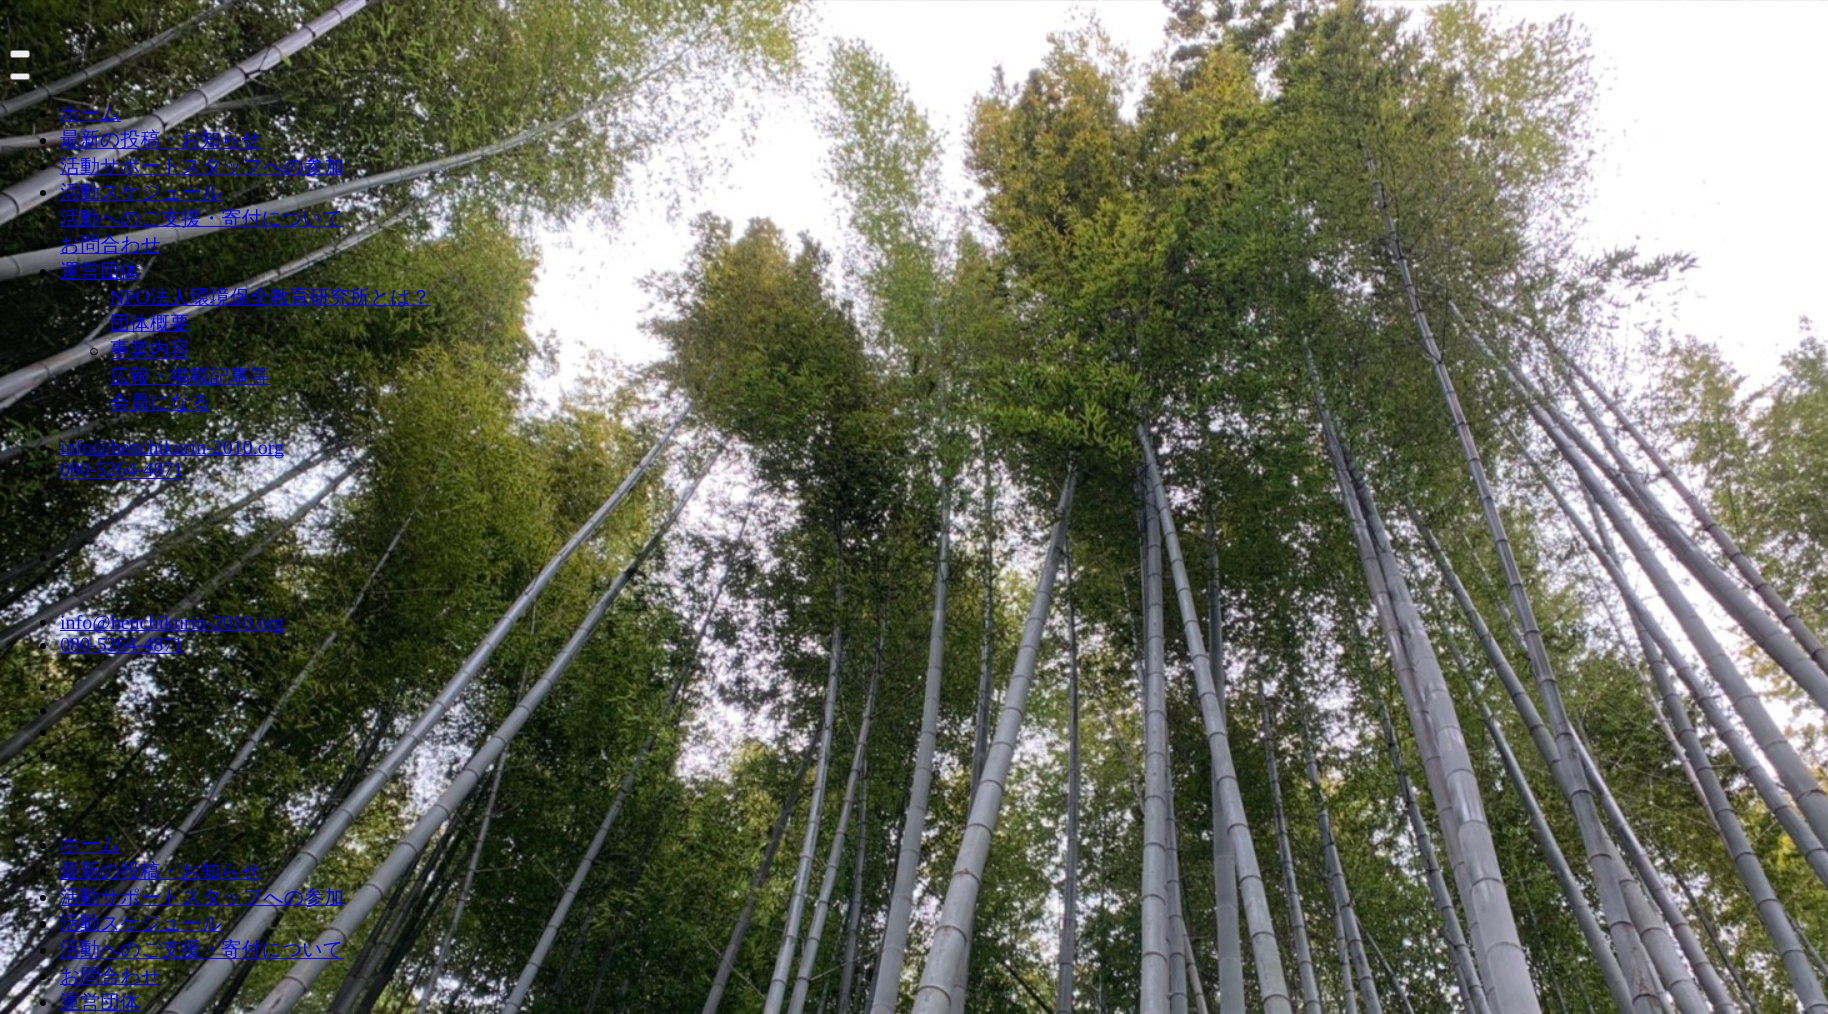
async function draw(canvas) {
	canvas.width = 1828;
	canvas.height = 1014;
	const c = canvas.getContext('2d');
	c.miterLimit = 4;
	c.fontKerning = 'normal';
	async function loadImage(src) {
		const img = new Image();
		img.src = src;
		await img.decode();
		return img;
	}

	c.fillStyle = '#fff';
	c.fillRect(0, 0, 1828, 1014);
	c.drawImage(await loadImage('img1.png'), 0, 0, 1828, 1014);
	c.fillStyle = '#efefef';
	c.beginPath();
	c.roundRect(10.5, 50.5, 19, 7, 2);
	c.fill();
	c.strokeStyle = '#767676';
	c.stroke();
	c.beginPath();
	c.roundRect(10.5, 73.5, 19, 6, 2);
	c.fill();
	c.stroke();
	c.fillStyle = '#000';
	c.beginPath();
	c.roundRect(40, 111, 6, 7, 3);
	c.fill();
	c.fillStyle = '#00e';
	c.fillRect(60, 121, 61, 1);
	c.font = '500 20px WenQuanYi Zen Hei';
	c.fillText('ホーム', 60, 120);
	c.fillStyle = '#000';
	c.beginPath();
	c.arc(43, 141, 3, 0, 2 * Math.PI);
	c.fill();
	c.fillStyle = '#00e';
	c.fillRect(60, 148, 203, 1);
	c.fillText('最新の投稿・お知らせ', 60, 146);
	c.fillStyle = '#000';
	c.beginPath();
	c.arc(43, 167, 3, 0, 2 * Math.PI);
	c.fill();
	c.fillStyle = '#00e';
	c.fillRect(60, 174, 284, 1);
	c.fillText('活動サポートスタッフへの参加', 60, 173);
	c.fillStyle = '#000';
	c.beginPath();
	c.arc(43, 193, 3, 0, 2 * Math.PI);
	c.fill();
	c.fillStyle = '#00e';
	c.fillRect(60, 200, 163, 1);
	c.fillText('活動スケジュール', 60, 199);
	c.fillStyle = '#000';
	c.beginPath();
	c.roundRect(40, 216, 6, 7, 3);
	c.fill();
	c.fillStyle = '#00e';
	c.fillRect(60, 226, 284, 1);
	c.fillText('活動へのご支援・寄付について', 60, 225);
	c.fillStyle = '#000';
	c.beginPath();
	c.arc(43, 246, 3, 0, 2 * Math.PI);
	c.fill();
	c.fillStyle = '#00e';
	c.fillRect(60, 253, 101, 1);
	c.fillText('お問合わせ', 60, 251);
	c.fillStyle = '#000';
	c.beginPath();
	c.arc(43, 272, 3, 0, 2 * Math.PI);
	c.fill();
	c.fillStyle = '#00e';
	c.fillRect(60, 279, 80, 1);
	c.fillText('運営団体', 60, 278);
	c.beginPath();
	c.arc(94, 299, 3.5, 0, 2 * Math.PI);
	c.strokeStyle = '#000';
	c.stroke();
	c.font = '20px Liberation Serif';
	c.fillText('NPO', 110, 304);
	c.fillRect(110, 305, 321, 1);
	c.font = '500 20px WenQuanYi Zen Hei';
	c.fillText('法人環境保全教育研究所とは？', 150, 304);
	c.beginPath();
	c.arc(94, 325, 3.5, 0, 2 * Math.PI);
	c.stroke();
	c.fillRect(110, 331, 80, 1);
	c.fillText('団体概要', 110, 330);
	c.beginPath();
	c.roundRect(90.5, 348.5, 7, 6, 3);
	c.stroke();
	c.fillRect(110, 358, 80, 1);
	c.fillText('事業内容', 110, 356);
	c.beginPath();
	c.roundRect(90.5, 374.5, 7, 6, 3);
	c.stroke();
	c.fillRect(110, 384, 160, 1);
	c.fillText('広報・掲載記事等', 110, 383);
	c.beginPath();
	c.arc(94, 404, 3.5, 0, 2 * Math.PI);
	c.stroke();
	c.fillRect(110, 410, 101, 1);
	c.fillText('会員になる', 110, 409);
	c.fillStyle = '#000';
	c.beginPath();
	c.arc(43, 448, 3, 0, 2 * Math.PI);
	c.fill();
	c.fillStyle = '#00e';
	c.fillRect(60, 455, 224, 1);
	c.font = '20px Liberation Serif';
	c.fillText('info@henchikurin-2010.org', 60, 454);
	c.fillStyle = '#000';
	c.beginPath();
	c.arc(43, 471, 3, 0, 2 * Math.PI);
	c.fill();
	c.fillStyle = '#00e';
	c.fillText('080-5264-4871', 60, 476);
	c.fillRect(60, 478, 124, 1);
	c.fillStyle = '#000';
	c.beginPath();
	c.arc(43, 513, 3, 0, 2 * Math.PI);
	c.fill();
	c.beginPath();
	c.arc(43, 536, 3, 0, 2 * Math.PI);
	c.fill();
	c.beginPath();
	c.arc(43, 558, 3, 0, 2 * Math.PI);
	c.fill();
	c.beginPath();
	c.arc(43, 581, 3, 0, 2 * Math.PI);
	c.fill();
	c.beginPath();
	c.arc(43, 623, 3, 0, 2 * Math.PI);
	c.fill();
	c.fillStyle = '#00e';
	c.fillRect(60, 630, 224, 1);
	c.fillText('info@henchikurin-2010.org', 60, 629);
	c.fillStyle = '#000';
	c.beginPath();
	c.arc(43, 646, 3, 0, 2 * Math.PI);
	c.fill();
	c.fillStyle = '#00e';
	c.fillText('080-5264-4871', 60, 651);
	c.fillRect(60, 653, 124, 1);
	c.fillStyle = '#000';
	c.beginPath();
	c.arc(43, 688, 3, 0, 2 * Math.PI);
	c.fill();
	c.beginPath();
	c.arc(43, 711, 3, 0, 2 * Math.PI);
	c.fill();
	c.beginPath();
	c.arc(43, 733, 3, 0, 2 * Math.PI);
	c.fill();
	c.beginPath();
	c.arc(43, 756, 3, 0, 2 * Math.PI);
	c.fill();
	c.beginPath();
	c.arc(43, 846, 3, 0, 2 * Math.PI);
	c.fill();
	c.fillStyle = '#00e';
	c.fillRect(60, 853, 61, 1);
	c.font = '500 20px WenQuanYi Zen Hei';
	c.fillText('ホーム', 60, 851);
	c.fillStyle = '#000';
	c.beginPath();
	c.arc(43, 872, 3, 0, 2 * Math.PI);
	c.fill();
	c.fillStyle = '#00e';
	c.fillRect(60, 879, 203, 1);
	c.fillText('最新の投稿・お知らせ', 60, 878);
	c.fillStyle = '#000';
	c.beginPath();
	c.arc(43, 898, 3, 0, 2 * Math.PI);
	c.fill();
	c.fillStyle = '#00e';
	c.fillRect(60, 905, 284, 1);
	c.fillText('活動サポートスタッフへの参加', 60, 904);
	c.fillStyle = '#000';
	c.beginPath();
	c.roundRect(40, 921, 6, 7, 3);
	c.fill();
	c.fillStyle = '#00e';
	c.fillRect(60, 931, 163, 1);
	c.fillText('活動スケジュール', 60, 930);
	c.fillStyle = '#000';
	c.beginPath();
	c.arc(43, 951, 3, 0, 2 * Math.PI);
	c.fill();
	c.fillStyle = '#00e';
	c.fillRect(60, 958, 284, 1);
	c.fillText('活動へのご支援・寄付について', 60, 956);
	c.fillStyle = '#000';
	c.beginPath();
	c.arc(43, 977, 3, 0, 2 * Math.PI);
	c.fill();
	c.fillStyle = '#00e';
	c.fillRect(60, 984, 101, 1);
	c.fillText('お問合わせ', 60, 983);
	c.fillStyle = '#000';
	c.beginPath();
	c.arc(43, 1003, 3, 0, 2 * Math.PI);
	c.fill();
	c.fillStyle = '#00e';
	c.fillRect(60, 1010, 80, 1);
	c.fillText('運営団体', 60, 1009);
}

draw(document.querySelector('canvas'));
